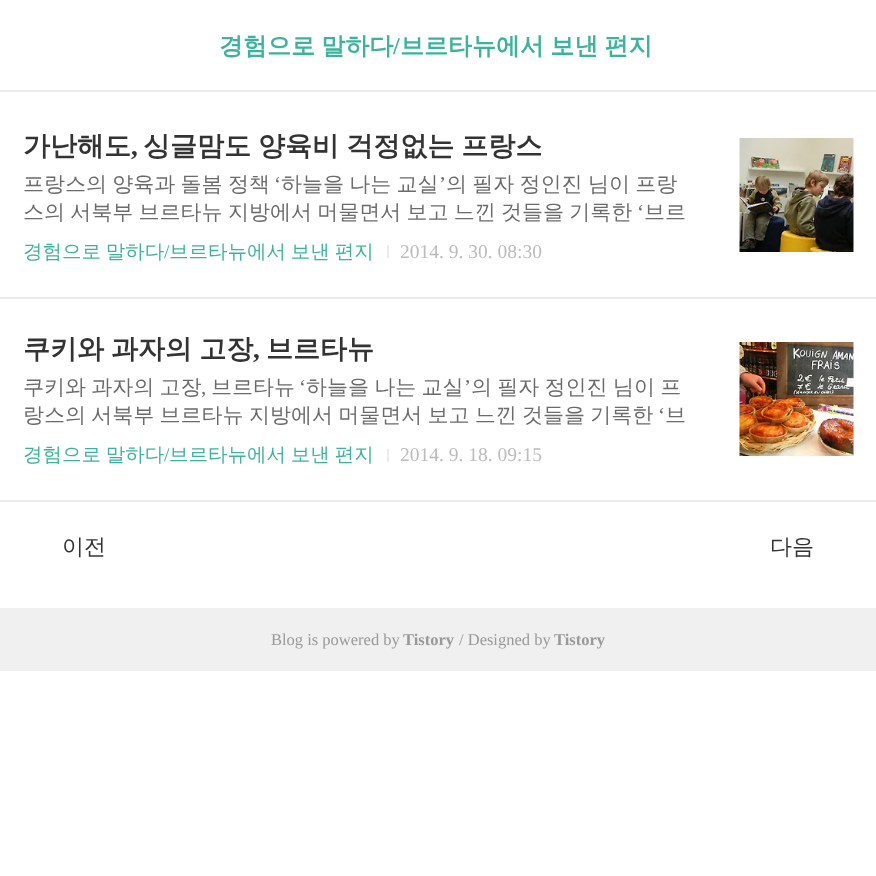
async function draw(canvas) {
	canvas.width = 876;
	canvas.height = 876;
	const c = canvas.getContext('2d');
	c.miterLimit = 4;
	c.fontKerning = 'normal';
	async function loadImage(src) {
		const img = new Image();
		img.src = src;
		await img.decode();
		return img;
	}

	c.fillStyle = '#fff';
	c.fillRect(0, 0, 876, 876);
	c.wordSpacing = '-1px';
	c.font = 'bold 24px WenQuanYi Zen Hei';
	c.fillStyle = '#3db39e';
	c.fillText('경험으로 말하다', 219, 54);
	c.wordSpacing = '0px';
	c.font = 'bold 24px Liberation Serif';
	c.fillText('/', 393, 54);
	c.wordSpacing = '-1px';
	c.font = 'bold 24px WenQuanYi Zen Hei';
	c.fillText('브르타뉴에서 보낸 편지', 400, 54);
	c.fillStyle = '#ebebeb';
	c.fillRect(0, 90, 876, 2);
	c.fillRect(0, 297, 876, 2);
	c.wordSpacing = '0px';
	c.font = 'bold 27px WenQuanYi Zen Hei';
	c.fillStyle = '#333';
	c.fillText('가난해도', 23, 155);
	c.font = 'bold 27px Liberation Serif';
	c.fillText(',', 131, 155);
	c.wordSpacing = '-1px';
	c.font = 'bold 27px WenQuanYi Zen Hei';
	c.fillText('싱글맘도 양육비 걱정없는 프랑스', 143, 155);
	c.font = '500 21px WenQuanYi Zen Hei';
	c.fillStyle = '#6b6b6b';
	c.fillText('프랑스의 양육과 돌봄 정책', 23, 191);
	c.wordSpacing = '0px';
	c.font = '21px Liberation Serif';
	c.fillText('‘', 274, 191);
	c.wordSpacing = '-1px';
	c.font = '500 21px WenQuanYi Zen Hei';
	c.fillText('하늘을 나는 교실', 281, 191);
	c.wordSpacing = '0px';
	c.font = '21px Liberation Serif';
	c.fillText('’', 439, 191);
	c.wordSpacing = '-1px';
	c.font = '500 21px WenQuanYi Zen Hei';
	c.fillText('의 필자 정인진 님이 프랑', 446, 191);
	c.fillText('스의 서북부 브르타뉴 지방에서 머물면서 보고 느낀 것들을 기록한', 23, 219);
	c.wordSpacing = '0px';
	c.font = '21px Liberation Serif';
	c.fillText('‘', 637, 219);
	c.font = '500 21px WenQuanYi Zen Hei';
	c.fillText('브르', 644, 219);
	c.drawImage(await loadImage('img1.png'), 739, 138, 115, 114);
	c.wordSpacing = '-1px';
	c.font = '500 19.5px WenQuanYi Zen Hei';
	c.fillStyle = '#3db39e';
	c.fillText('경험으로 말하다', 23, 258);
	c.wordSpacing = '0px';
	c.font = '19.5px Liberation Serif';
	c.fillText('/', 164, 258);
	c.wordSpacing = '-1px';
	c.font = '500 19.5px WenQuanYi Zen Hei';
	c.fillText('브르타뉴에서 보낸 편지', 169, 258);
	c.fillStyle = '#ebebeb';
	c.fillRect(387, 245, 2, 13);
	c.wordSpacing = '0px';
	c.font = '19.5px Liberation Serif';
	c.fillStyle = '#bbb';
	c.fillText('2014. 9. 30. 08:30', 400, 258);
	c.fillStyle = '#ebebeb';
	c.fillRect(0, 500, 876, 2);
	c.wordSpacing = '-1px';
	c.font = 'bold 27px WenQuanYi Zen Hei';
	c.fillStyle = '#333';
	c.fillText('쿠키와 과자의 고장', 23, 358);
	c.wordSpacing = '0px';
	c.font = 'bold 27px Liberation Serif';
	c.fillText(',', 253, 358);
	c.font = 'bold 27px WenQuanYi Zen Hei';
	c.fillText('브르타뉴', 266, 358);
	c.wordSpacing = '-1px';
	c.font = '500 21px WenQuanYi Zen Hei';
	c.fillStyle = '#6b6b6b';
	c.fillText('쿠키와 과자의 고장', 23, 394);
	c.wordSpacing = '0px';
	c.fillText('브르타뉴', 211, 394);
	c.font = '21px Liberation Serif';
	c.fillText('‘', 299, 394);
	c.wordSpacing = '-1px';
	c.font = '500 21px WenQuanYi Zen Hei';
	c.fillText('하늘을 나는 교실', 306, 394);
	c.wordSpacing = '0px';
	c.font = '21px Liberation Serif';
	c.fillText('’', 464, 394);
	c.wordSpacing = '-1px';
	c.font = '500 21px WenQuanYi Zen Hei';
	c.fillText('의 필자 정인진 님이 프', 471, 394);
	c.wordSpacing = '0px';
	c.font = '21px Liberation Serif';
	c.fillText(',', 201, 394);
	c.wordSpacing = '-1px';
	c.font = '500 21px WenQuanYi Zen Hei';
	c.fillText('랑스의 서북부 브르타뉴 지방에서 머물면서 보고 느낀 것들을 기록한', 23, 422);
	c.wordSpacing = '0px';
	c.font = '21px Liberation Serif';
	c.fillText('‘', 658, 422);
	c.font = '500 21px WenQuanYi Zen Hei';
	c.fillText('브', 665, 422);
	c.drawImage(await loadImage('img2.png'), 739, 342, 115, 114);
	c.wordSpacing = '-1px';
	c.font = '500 19.5px WenQuanYi Zen Hei';
	c.fillStyle = '#3db39e';
	c.fillText('경험으로 말하다', 23, 461);
	c.wordSpacing = '0px';
	c.font = '19.5px Liberation Serif';
	c.fillText('/', 164, 461);
	c.wordSpacing = '-1px';
	c.font = '500 19.5px WenQuanYi Zen Hei';
	c.fillText('브르타뉴에서 보낸 편지', 169, 461);
	c.fillStyle = '#ebebeb';
	c.fillRect(387, 449, 2, 13);
	c.wordSpacing = '0px';
	c.font = '19.5px Liberation Serif';
	c.fillStyle = '#bbb';
	c.fillText('2014. 9. 18. 09:15', 400, 461);
	c.font = '500 22px WenQuanYi Zen Hei';
	c.fillStyle = '#333';
	c.fillText('이전', 62, 554);
	c.fillText('다음', 770, 554);
	c.fillStyle = '#f0f0f0';
	c.fillRect(0, 608, 876, 63);
	c.font = '16.5px Liberation Serif';
	c.fillStyle = '#999';
	c.fillText('Blog is powered by', 271, 645);
	c.font = 'bold 16.5px Liberation Serif';
	c.fillText('Tistory', 403, 645);
	c.font = '16.5px Liberation Serif';
	c.fillText('/ Designed by', 459, 645);
	c.font = 'bold 16.5px Liberation Serif';
	c.fillText('Tistory', 554, 645);
}

draw(document.querySelector('canvas'));
